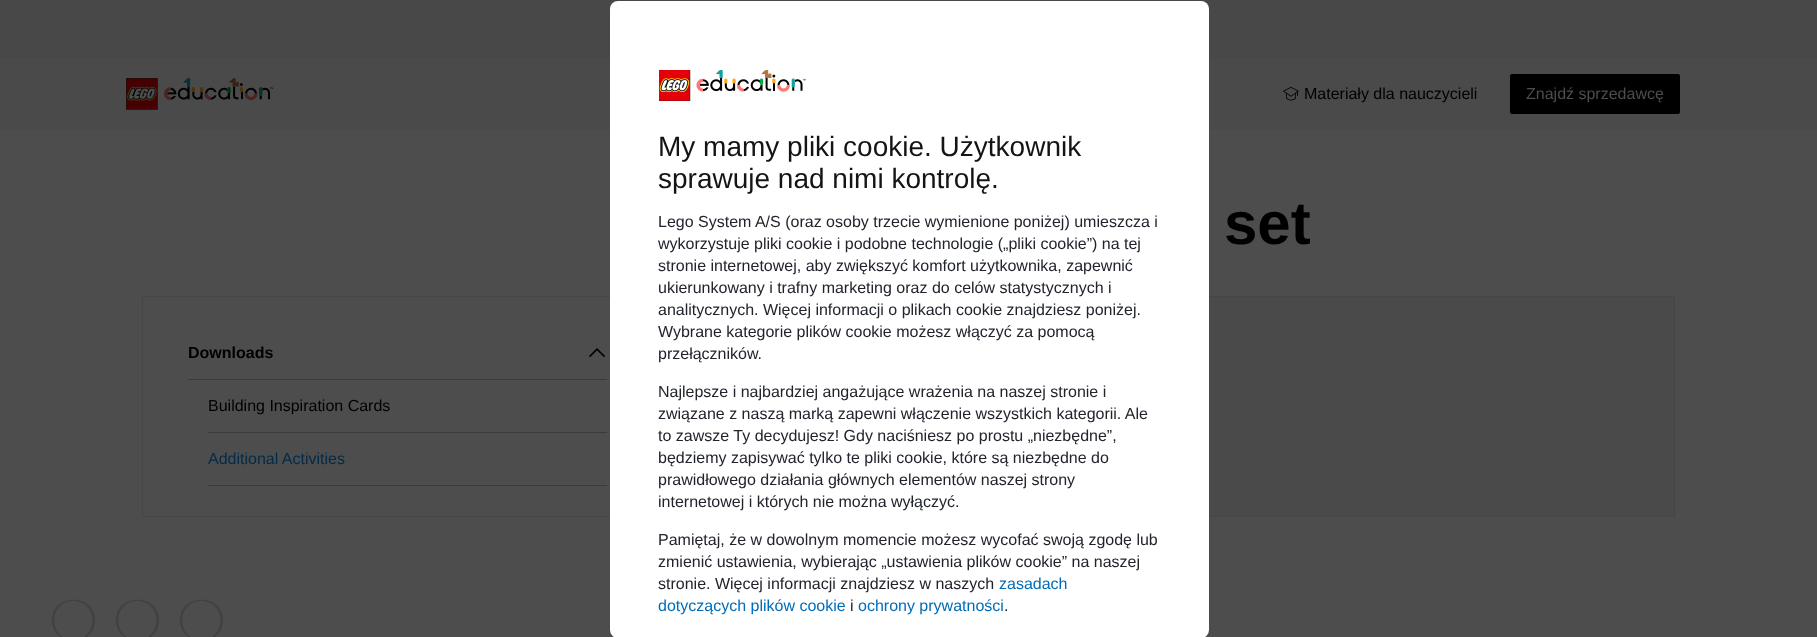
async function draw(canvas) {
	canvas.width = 1817;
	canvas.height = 637;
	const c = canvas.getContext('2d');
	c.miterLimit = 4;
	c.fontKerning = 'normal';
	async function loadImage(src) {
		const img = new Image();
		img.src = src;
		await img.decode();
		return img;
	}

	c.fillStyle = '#4d4d4d';
	c.fillRect(0, 0, 1817, 637);
	c.fillStyle = '#484848';
	c.fillRect(0, 0, 1817, 58);
	c.fillStyle = '#4a4a4a';
	c.fillRect(0, 58, 1817, 72);
	c.drawImage(await loadImage('img1.png'), 126, 78, 147, 32);
	c.drawImage(await loadImage('img2.png'), 1283, 86, 16, 15);
	c.font = '16px Liberation Sans';
	c.fillStyle = '#000';
	c.fillText('Materiały dla nauczycieli', 1304, 99);
	c.beginPath();
	c.roundRect(1510, 74, 170, 40, 2);
	c.fill();
	c.fillStyle = '#4d4d4d';
	c.fillText('Znajdź sprzedawcę', 1526, 99);
	c.font = 'bold 60px Liberation Sans';
	c.fillStyle = '#000';
	c.fillText('set', 1224, 244);
	c.strokeStyle = '#464646';
	c.strokeRect(142.5, 296.5, 1532, 220);
	c.font = 'bold 16px Liberation Sans';
	c.fillText('Downloads', 188, 358);
	c.drawImage(await loadImage('img3.png'), 589, 348, 16, 10);
	c.fillStyle = '#3b3b3b';
	c.fillRect(188, 379, 419, 1);
	c.fillRect(208, 432, 399, 1);
	c.font = '16px Liberation Sans';
	c.fillStyle = '#000';
	c.fillText('Building Inspiration Cards', 208, 411);
	c.fillStyle = '#002b4a';
	c.fillText('Additional Activities', 208, 464);
	c.fillStyle = '#3b3b3b';
	c.fillRect(208, 485, 399, 1);
	c.fillStyle = '#4a4a4a';
	c.fillRect(1209, 297, 465, 219);
	c.fillStyle = '#414144';
	c.beginPath();
	c.moveTo(73, 601);
	c.bezierCurveTo(48, 601, 48, 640, 73, 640);
	c.bezierCurveTo(99, 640, 99, 601, 73, 601);
	c.closePath();
	c.moveTo(52, 620);
	c.bezierCurveTo(52, 593, 95, 593, 95, 620);
	c.bezierCurveTo(95, 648, 52, 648, 52, 620);
	c.closePath();
	c.fill('evenodd');
	c.beginPath();
	c.moveTo(137, 601);
	c.bezierCurveTo(112, 601, 112, 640, 137, 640);
	c.bezierCurveTo(163, 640, 163, 601, 137, 601);
	c.closePath();
	c.moveTo(116, 620);
	c.bezierCurveTo(116, 593, 159, 593, 159, 620);
	c.bezierCurveTo(159, 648, 116, 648, 116, 620);
	c.closePath();
	c.fill('evenodd');
	c.beginPath();
	c.moveTo(201, 601);
	c.bezierCurveTo(176, 601, 176, 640, 201, 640);
	c.bezierCurveTo(227, 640, 227, 601, 201, 601);
	c.closePath();
	c.moveTo(180, 620);
	c.bezierCurveTo(180, 593, 223, 593, 223, 620);
	c.bezierCurveTo(223, 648, 180, 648, 180, 620);
	c.closePath();
	c.fill('evenodd');
	c.fillStyle = '#fff';
	c.beginPath();
	c.roundRect(610, 1, 599, 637, 8);
	c.fill();
	c.drawImage(await loadImage('img4.png'), 659, 70, 147, 31);
	c.font = '28px Liberation Sans';
	c.fillStyle = '#141414';
	c.fillText('My mamy pliki cookie. Użytkownik', 658, 156);
	c.fillText('sprawuje nad nimi kontrolę.', 658, 188);
	c.font = '16px Liberation Sans';
	c.fillStyle = '#22242d';
	for (const [text, x, y] of [
		['Lego System A/S (oraz osoby trzecie wymienione poniżej) umieszcza i', 658, 227],
		['wykorzystuje pliki cookie i podobne technologie („pliki cookie”) na tej', 658, 249],
		['stronie internetowej, aby zwiększyć komfort użytkownika, zapewnić', 658, 271],
		['ukierunkowany i trafny marketing oraz do celów statystycznych i', 658, 293],
		['analitycznych. Więcej informacji o plikach cookie znajdziesz poniżej.', 658, 315],
		['Wybrane kategorie plików cookie możesz włączyć za pomocą', 658, 337],
		['przełączników.', 658, 359],
		['Najlepsze i najbardziej angażujące wrażenia na naszej stronie i', 658, 397],
		['związane z naszą marką zapewni włączenie wszystkich kategorii. Ale', 658, 419],
		['to zawsze Ty decydujesz! Gdy naciśniesz po prostu „niezbędne”,', 658, 441],
		['będziemy zapisywać tylko te pliki cookie, które są niezbędne do', 658, 463],
		['prawidłowego działania głównych elementów naszej strony', 658, 485],
		['internetowej i których nie można wyłączyć.', 658, 507],
		['Pamiętaj, że w dowolnym momencie możesz wycofać swoją zgodę lub', 658, 545],
		['zmienić ustawienia, wybierając „ustawienia plików cookie” na naszej', 658, 567],
		['stronie. Więcej informacji znajdziesz w naszych', 658, 589],
	]) {
		c.fillText(text, x, y);
	}
	c.fillStyle = '#006cb7';
	c.fillText('zasadach', 999, 589);
	c.fillText('dotyczących plików cookie', 658, 611);
	c.fillStyle = '#22242d';
	c.fillText('i', 850, 611);
	c.fillStyle = '#006cb7';
	c.fillText('ochrony prywatności', 858, 611);
	c.fillStyle = '#22242d';
	c.fillText('.', 1004, 611);
}

draw(document.querySelector('canvas'));
